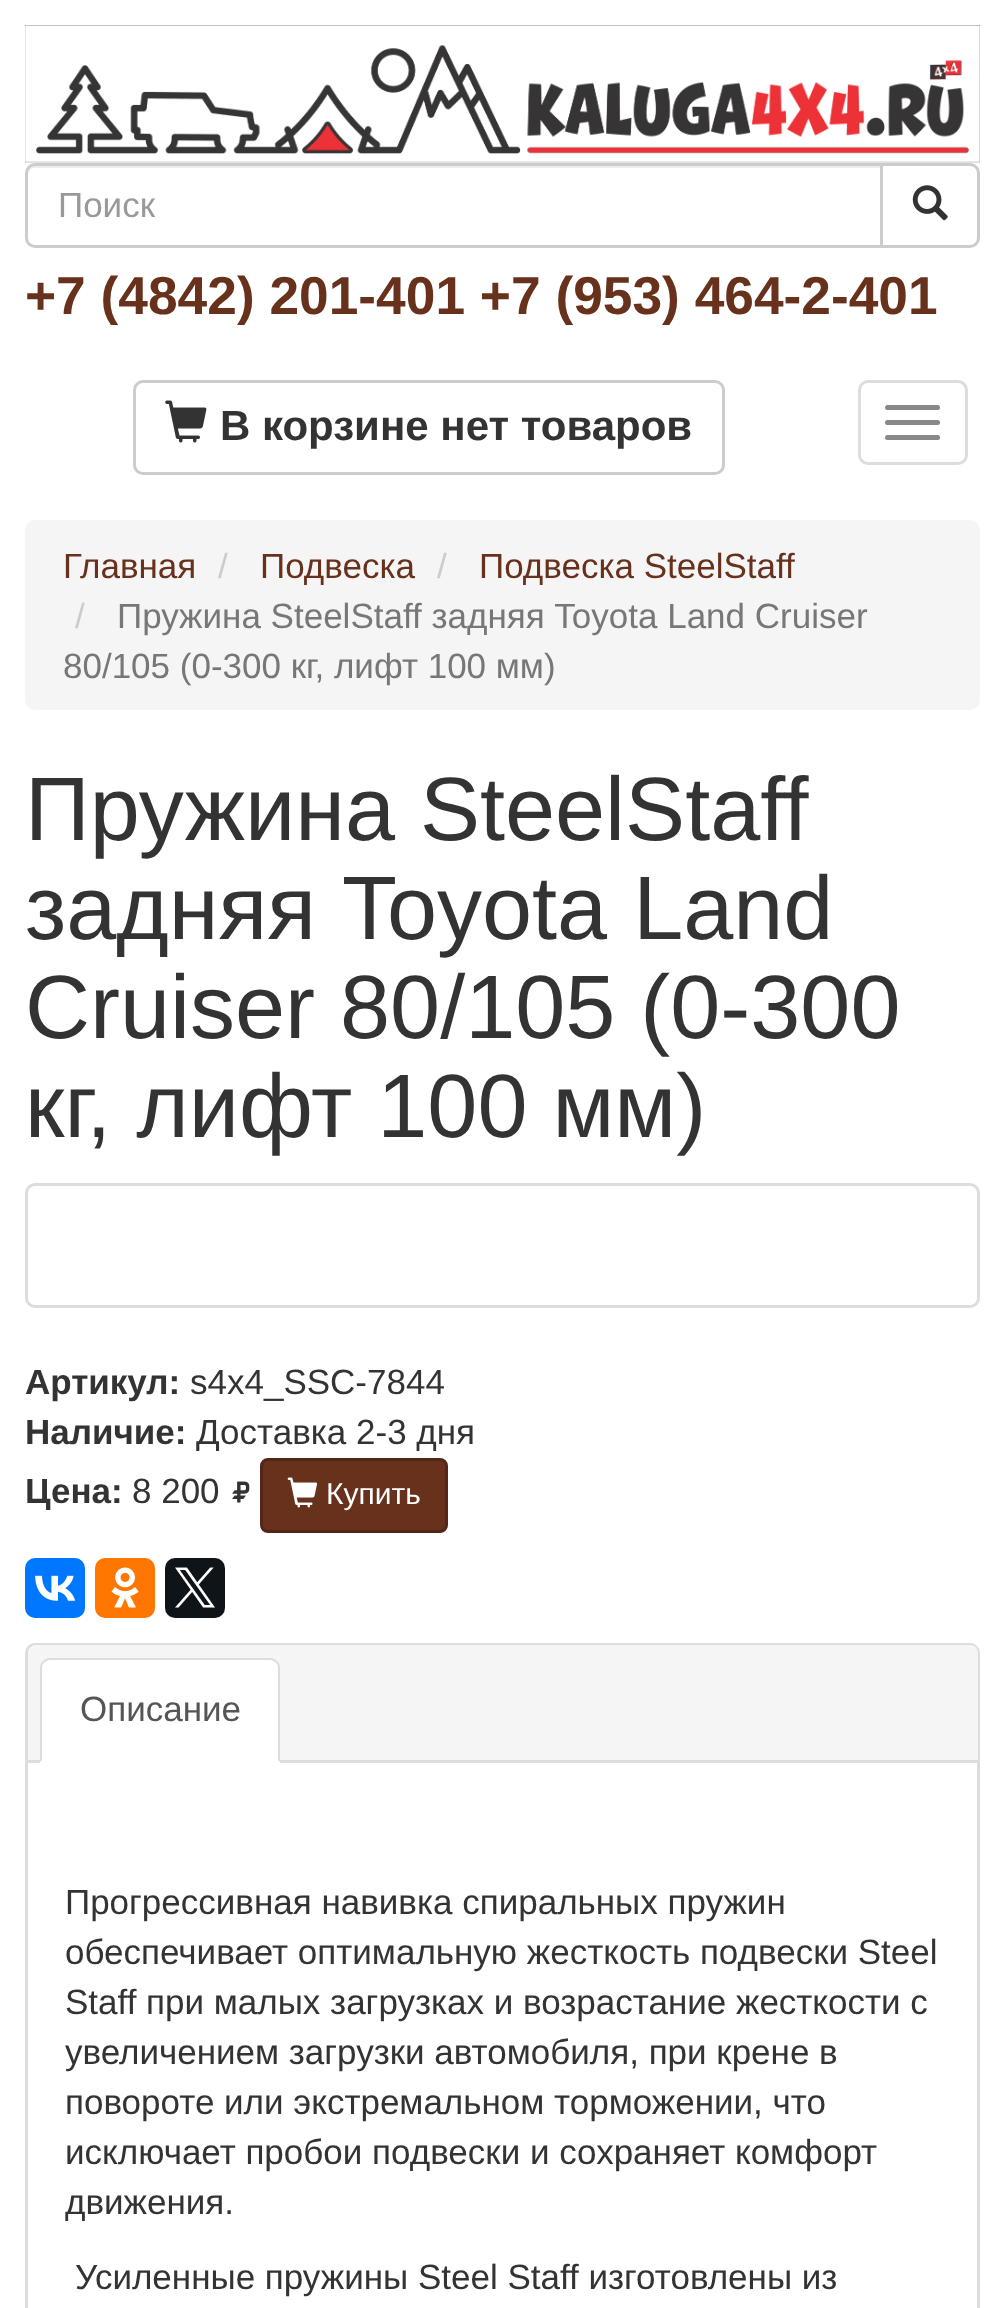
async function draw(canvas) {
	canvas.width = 1003;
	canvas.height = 2308;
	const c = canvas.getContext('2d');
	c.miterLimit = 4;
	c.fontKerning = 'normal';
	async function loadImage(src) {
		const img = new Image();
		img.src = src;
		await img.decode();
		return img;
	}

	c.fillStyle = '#fff';
	c.fillRect(0, 0, 1003, 2308);
	c.drawImage(await loadImage('img1.png'), 25, 25, 955, 138);
	c.fillStyle = '#ececec';
	c.beginPath();
	c.moveTo(35, 168);
	c.lineTo(880, 168);
	c.lineTo(880, 165);
	c.lineTo(36, 165);
	c.bezierCurveTo(32, 165, 28, 169, 28, 173);
	c.lineTo(28, 175);
	c.bezierCurveTo(28, 171, 31, 168, 35, 168);
	c.closePath();
	c.fill();
	c.beginPath();
	c.roundRect(26.5, 164.5, 855, 82, [8.5, 0, 0, 8.5]);
	c.strokeStyle = '#ccc';
	c.lineWidth = 3;
	c.stroke();
	c.font = '35px Liberation Sans';
	c.fillStyle = '#999';
	c.fillText('Поиск', 58, 217);
	c.fillStyle = '#fff';
	c.beginPath();
	c.roundRect(881.5, 164.5, 97, 82, [0, 8.5, 8.5, 0]);
	c.fill();
	c.stroke();
	c.drawImage(await loadImage('img2.png'), 912, 185, 36, 36);
	c.font = 'bold 53.3px Liberation Sans';
	c.fillStyle = '#67311c';
	c.fillText('+7 (4842) 201-401 +7 (953) 464-2-401', 25, 314);
	c.beginPath();
	c.roundRect(134.5, 381.5, 589, 92, 8.5);
	c.stroke();
	c.drawImage(await loadImage('img3.png'), 165, 400, 42, 43);
	c.font = 'bold 42px Liberation Sans';
	c.fillStyle = '#333';
	c.fillText('В корзине нет товаров', 220, 440);
	c.beginPath();
	c.roundRect(859.5, 381.5, 107, 82, 8.5);
	c.strokeStyle = '#ddd';
	c.stroke();
	c.fillStyle = '#888';
	c.beginPath();
	c.roundRect(885, 405, 55, 5, 2.5);
	c.fill();
	c.beginPath();
	c.roundRect(885, 420, 55, 5, 2.5);
	c.fill();
	c.beginPath();
	c.roundRect(885, 435, 55, 5, 2.5);
	c.fill();
	c.fillStyle = '#f5f5f5';
	c.beginPath();
	c.roundRect(25, 520, 955, 190, 10);
	c.fill();
	c.font = '35px Liberation Sans';
	c.fillStyle = '#67311c';
	c.fillText('Главная', 63, 578);
	c.fillStyle = '#ccc';
	c.fillText('/', 218, 578);
	c.fillStyle = '#67311c';
	c.fillText('Подвеска', 260, 578);
	c.fillStyle = '#ccc';
	c.fillText('/', 437, 578);
	c.fillStyle = '#67311c';
	c.fillText('Подвеска SteelStaff', 479, 578);
	c.fillStyle = '#ccc';
	c.fillText('/', 75, 628);
	c.fillStyle = '#777';
	c.fillText('Пружина SteelStaff задняя Toyota Land Cruiser', 117, 628);
	c.fillText('80/105 (0-300 кг, лифт 100 мм)', 63, 678);
	c.font = '90px Liberation Sans';
	c.fillStyle = '#333';
	c.fillText('Пружина SteelStaff', 25, 840);
	c.wordSpacing = '1px';
	c.fillText('задняя Toyota Land', 25, 939);
	c.wordSpacing = '0px';
	c.fillText('Cruiser 80/105 (0-300', 25, 1038);
	c.fillText('кг, лифт 100 мм)', 25, 1137);
	c.beginPath();
	c.roundRect(26.5, 1184.5, 952, 122, 8.5);
	c.stroke();
	c.font = 'bold 35px Liberation Sans';
	c.fillText('Артикул:', 25, 1394);
	c.font = '35px Liberation Sans';
	c.fillText('s4x4_SSC-7844', 190, 1394);
	c.font = 'bold 35px Liberation Sans';
	c.fillText('Наличие:', 25, 1444);
	c.font = '35px Liberation Sans';
	c.fillText('Доставка 2-3 дня', 196, 1444);
	c.font = 'bold 35px Liberation Sans';
	c.fillText('Цена:', 25, 1503);
	c.font = '35px Liberation Sans';
	c.fillText('8 200', 132, 1503);
	c.drawImage(await loadImage('img4.png'), 232, 1481, 18, 22);
	c.fillStyle = '#67311c';
	c.beginPath();
	c.roundRect(261.5, 1459.5, 185, 72, 6.5);
	c.fill();
	c.strokeStyle = '#532717';
	c.stroke();
	c.drawImage(await loadImage('img5.png'), 287, 1477, 31, 31);
	c.font = '30px Liberation Sans';
	c.fillStyle = '#fff';
	c.fillText('Купить', 326, 1504);
	c.fillStyle = '#07f';
	c.beginPath();
	c.roundRect(25, 1558, 60, 60, 10);
	c.fill();
	c.drawImage(await loadImage('img6.png'), 35, 1575, 41, 26);
	c.fillStyle = '#f70';
	c.beginPath();
	c.roundRect(95, 1558, 60, 60, 10);
	c.fill();
	c.drawImage(await loadImage('img7.png'), 111, 1567, 28, 41);
	c.fillStyle = '#0f1419';
	c.beginPath();
	c.roundRect(165, 1558, 60, 60, 10);
	c.fill();
	c.drawImage(await loadImage('img8.png'), 175, 1567, 40, 41);
	c.beginPath();
	c.roundRect(26.5, 1644.5, 952, 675, 8.5);
	c.strokeStyle = '#ddd';
	c.stroke();
	c.fillStyle = '#f5f5f5';
	c.beginPath();
	c.roundRect(28, 1645, 950, 118, [8, 8, 0, 0]);
	c.fill();
	c.fillStyle = '#ddd';
	c.fillRect(28, 1760, 950, 3);
	c.fillStyle = '#fff';
	c.beginPath();
	c.roundRect(40, 1658, 240, 105, [10, 10, 0, 0]);
	c.fill();
	c.fillStyle = '#ddd';
	c.beginPath();
	c.moveTo(50, 1658);
	c.bezierCurveTo(47, 1658, 45, 1659, 43, 1661);
	c.lineTo(45, 1662);
	c.bezierCurveTo(46, 1661, 48, 1660, 50, 1660);
	c.lineTo(270, 1660);
	c.bezierCurveTo(272, 1660, 274, 1661, 275, 1662);
	c.lineTo(277, 1661);
	c.bezierCurveTo(275, 1659, 273, 1658, 270, 1658);
	c.closePath();
	c.fill();
	c.beginPath();
	c.moveTo(277, 1661);
	c.bezierCurveTo(279, 1662, 280, 1665, 280, 1668);
	c.lineTo(280, 1762);
	c.lineTo(278, 1760);
	c.lineTo(278, 1668);
	c.bezierCurveTo(278, 1665, 277, 1663, 275, 1662);
	c.closePath();
	c.fill();
	c.beginPath();
	c.moveTo(40, 1668);
	c.lineTo(40, 1762);
	c.lineTo(42, 1760);
	c.lineTo(42, 1668);
	c.bezierCurveTo(42, 1665, 43, 1663, 45, 1662);
	c.lineTo(43, 1661);
	c.bezierCurveTo(41, 1662, 40, 1665, 40, 1668);
	c.closePath();
	c.fill();
	c.font = '35px Liberation Sans';
	c.fillStyle = '#555';
	c.fillText('Описание', 80, 1721);
	c.fillStyle = '#333';
	for (const [text, x, y] of [
		['Прогрессивная навивка спиральных пружин', 65, 1914],
		['обеспечивает оптимальную жесткость подвески Steel', 65, 1964],
		['Staff при малых загрузках и возрастание жесткости с', 65, 2014],
		['увеличением загрузки автомобиля, при крене в', 65, 2064],
		['повороте или экстремальном торможении, что', 65, 2114],
		['исключает пробои подвески и сохраняет комфорт', 65, 2164],
		['движения.', 65, 2214],
		['Усиленные пружины Steel Staff изготовлены из', 75, 2289],
	]) {
		c.fillText(text, x, y);
	}
}

draw(document.querySelector('canvas'));
